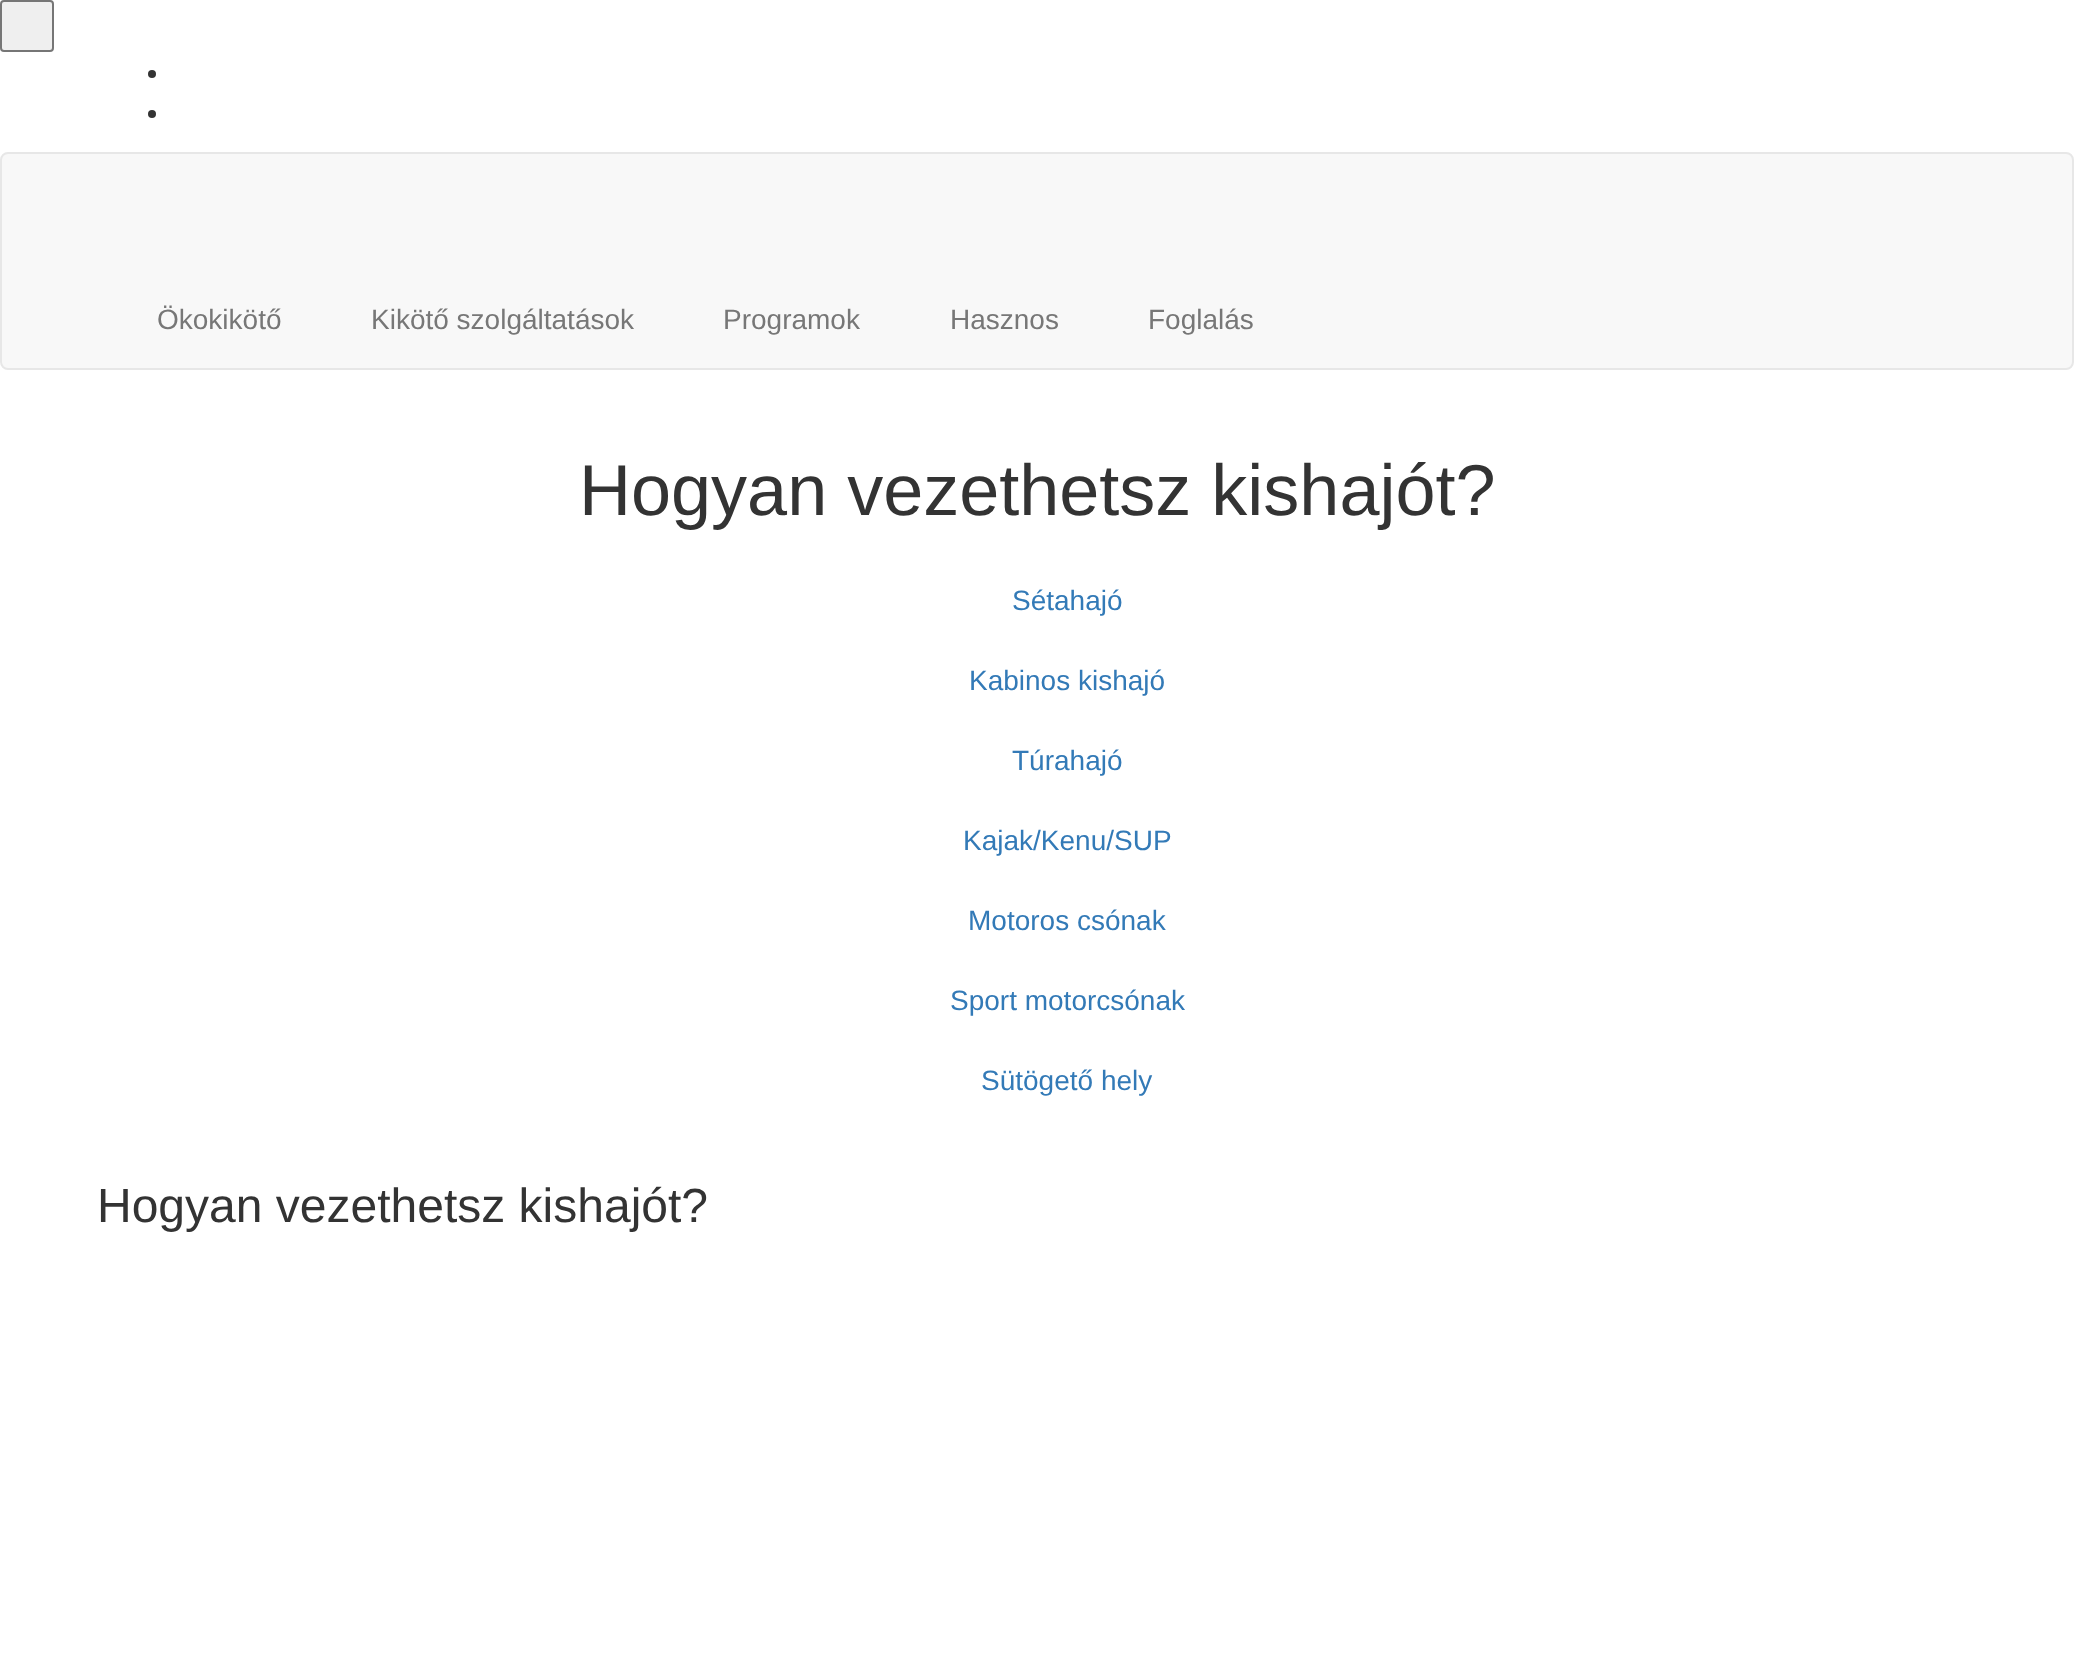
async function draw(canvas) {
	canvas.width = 2074;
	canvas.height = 1665;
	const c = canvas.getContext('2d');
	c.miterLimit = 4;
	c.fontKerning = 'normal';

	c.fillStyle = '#fff';
	c.fillRect(0, 0, 2074, 1665);
	c.fillStyle = '#efefef';
	c.beginPath();
	c.roundRect(1, 1, 52, 50, 3);
	c.fill();
	c.strokeStyle = '#767676';
	c.lineWidth = 2;
	c.stroke();
	c.fillStyle = '#333';
	c.beginPath();
	c.arc(152, 74, 4, 0, 2 * Math.PI);
	c.fill();
	c.beginPath();
	c.arc(152, 114, 4, 0, 2 * Math.PI);
	c.fill();
	c.fillStyle = '#f8f8f8';
	c.beginPath();
	c.roundRect(1, 153, 2072, 216, 7);
	c.fill();
	c.strokeStyle = '#e7e7e7';
	c.stroke();
	c.font = '28px Liberation Sans';
	c.fillStyle = '#777';
	for (const [text, x, y] of [
		['Ökokikötő', 157, 329],
		['Kikötő szolgáltatások', 371, 329],
		['Programok', 723, 329],
		['Hasznos', 950, 329],
		['Foglalás', 1148, 329],
	]) {
		c.fillText(text, x, y);
	}
	c.font = '72px Liberation Sans';
	c.fillStyle = '#333';
	c.fillText('Hogyan vezethetsz kishajót?', 579, 515);
	c.font = '28px Liberation Sans';
	c.fillStyle = '#337ab7';
	for (const [text, x, y] of [
		['Sétahajó', 1012, 610],
		['Kabinos kishajó', 969, 690],
		['Túrahajó', 1012, 770],
		['Kajak/Kenu/SUP', 963, 850],
		['Motoros csónak', 968, 930],
		['Sport motorcsónak', 950, 1010],
		['Sütögető hely', 981, 1090],
	]) {
		c.fillText(text, x, y);
	}
	c.font = '48px Liberation Sans';
	c.fillStyle = '#333';
	c.fillText('Hogyan vezethetsz kishajót?', 97, 1222);
}

draw(document.querySelector('canvas'));
